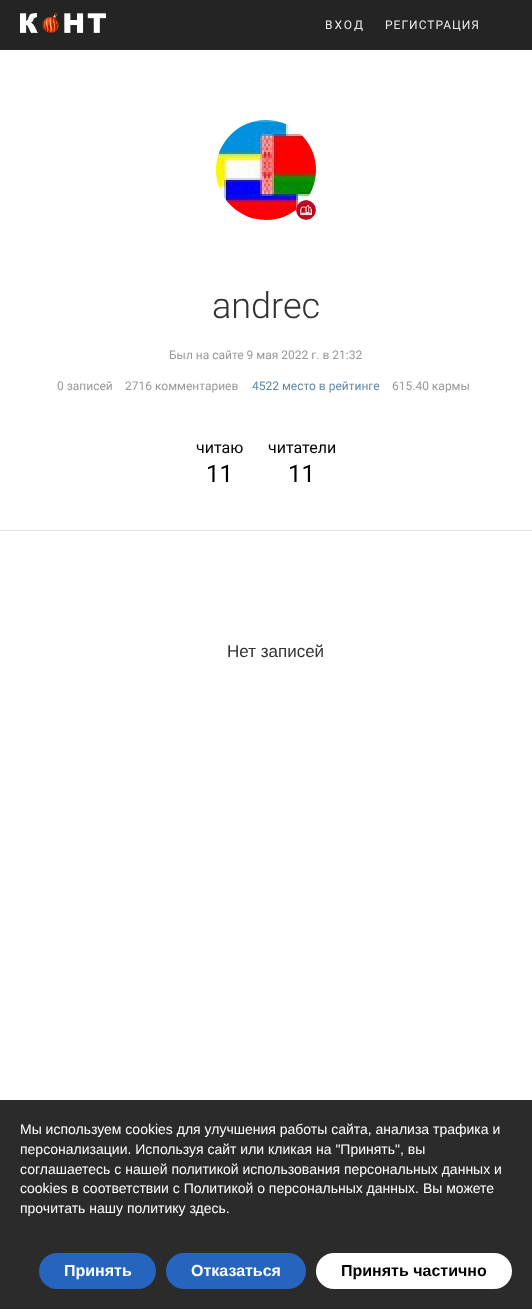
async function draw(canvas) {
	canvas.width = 532;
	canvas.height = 1309;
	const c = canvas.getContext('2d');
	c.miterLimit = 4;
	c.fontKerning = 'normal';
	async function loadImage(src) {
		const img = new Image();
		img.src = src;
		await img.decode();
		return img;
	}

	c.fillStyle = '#fff';
	c.fillRect(0, 0, 532, 1309);
	c.fillStyle = '#242424';
	c.fillRect(0, 0, 532, 50);
	c.drawImage(await loadImage('img1.png'), 20, 13, 86, 20);
	c.letterSpacing = '2px';
	c.font = '12px Roboto';
	c.fillStyle = '#e9e9e9';
	c.fillText('ВХОД', 325, 29);
	c.letterSpacing = '1px';
	c.fillText('РЕГИСТРАЦИЯ', 385, 29);
	c.drawImage(await loadImage('img2.png'), 216, 120, 100, 100);
	c.drawImage(await loadImage('img3.png'), 296, 200, 20, 20);
	c.letterSpacing = '0px';
	c.font = '300 36px Roboto';
	c.fillStyle = '#333';
	c.fillText('andrec', 212, 318);
	c.font = '12px Roboto';
	c.fillStyle = '#999';
	for (const [text, x, y] of [
		['Был на сайте 9 мая 2022 г. в 21:32', 169, 359],
		['0 записей', 57, 390],
		['2716 комментариев', 125, 390],
	]) {
		c.fillText(text, x, y);
	}
	c.fillStyle = '#6288a5';
	c.fillText('4522 место в рейтинге', 252, 390);
	c.fillStyle = '#999';
	c.fillText('615.40 кармы', 392, 390);
	c.font = '16px Roboto';
	c.fillStyle = '#000';
	c.fillText('читаю', 196, 453);
	c.font = '24px Roboto';
	c.fillText('11', 206, 482);
	c.font = '16px Roboto';
	c.fillText('читатели', 268, 453);
	c.font = '24px Roboto';
	c.fillText('11', 288, 482);
	c.fillStyle = '#e0e0e0';
	c.fillRect(0, 530, 532, 1);
	c.font = '17px Liberation Sans';
	c.fillStyle = '#333';
	c.fillText('Нет записей', 227, 657);
	c.fillStyle = '#2b2b2b';
	c.fillRect(0, 1100, 532, 209);
	c.font = '14px Liberation Sans';
	c.fillStyle = '#fff';
	for (const [text, x, y] of [
		['Мы используем cookies для улучшения работы сайта, анализа трафика и', 20, 1134],
		['персонализации. Используя сайт или кликая на "Принять", вы', 20, 1154],
		['соглашаетесь с нашей политикой использования персональных данных и', 20, 1174],
		['cookies в соответствии с Политикой о персональных данных. Вы можете', 20, 1193],
		['прочитать нашу политику здесь.', 20, 1213],
	]) {
		c.fillText(text, x, y);
	}
	c.fillStyle = '#2665bd';
	c.beginPath();
	c.roundRect(39, 1253, 117, 36, 18);
	c.fill();
	c.font = 'bold 16px Liberation Sans';
	c.fillStyle = '#fff';
	c.fillText('Принять', 64, 1276);
	c.fillStyle = '#2665bd';
	c.beginPath();
	c.roundRect(166, 1253, 140, 36, 18);
	c.fill();
	c.fillStyle = '#fff';
	c.fillText('Отказаться', 191, 1276);
	c.beginPath();
	c.roundRect(316, 1253, 196, 36, 18);
	c.fill();
	c.fillStyle = '#000';
	c.fillText('Принять частично', 341, 1276);
}

draw(document.querySelector('canvas'));
